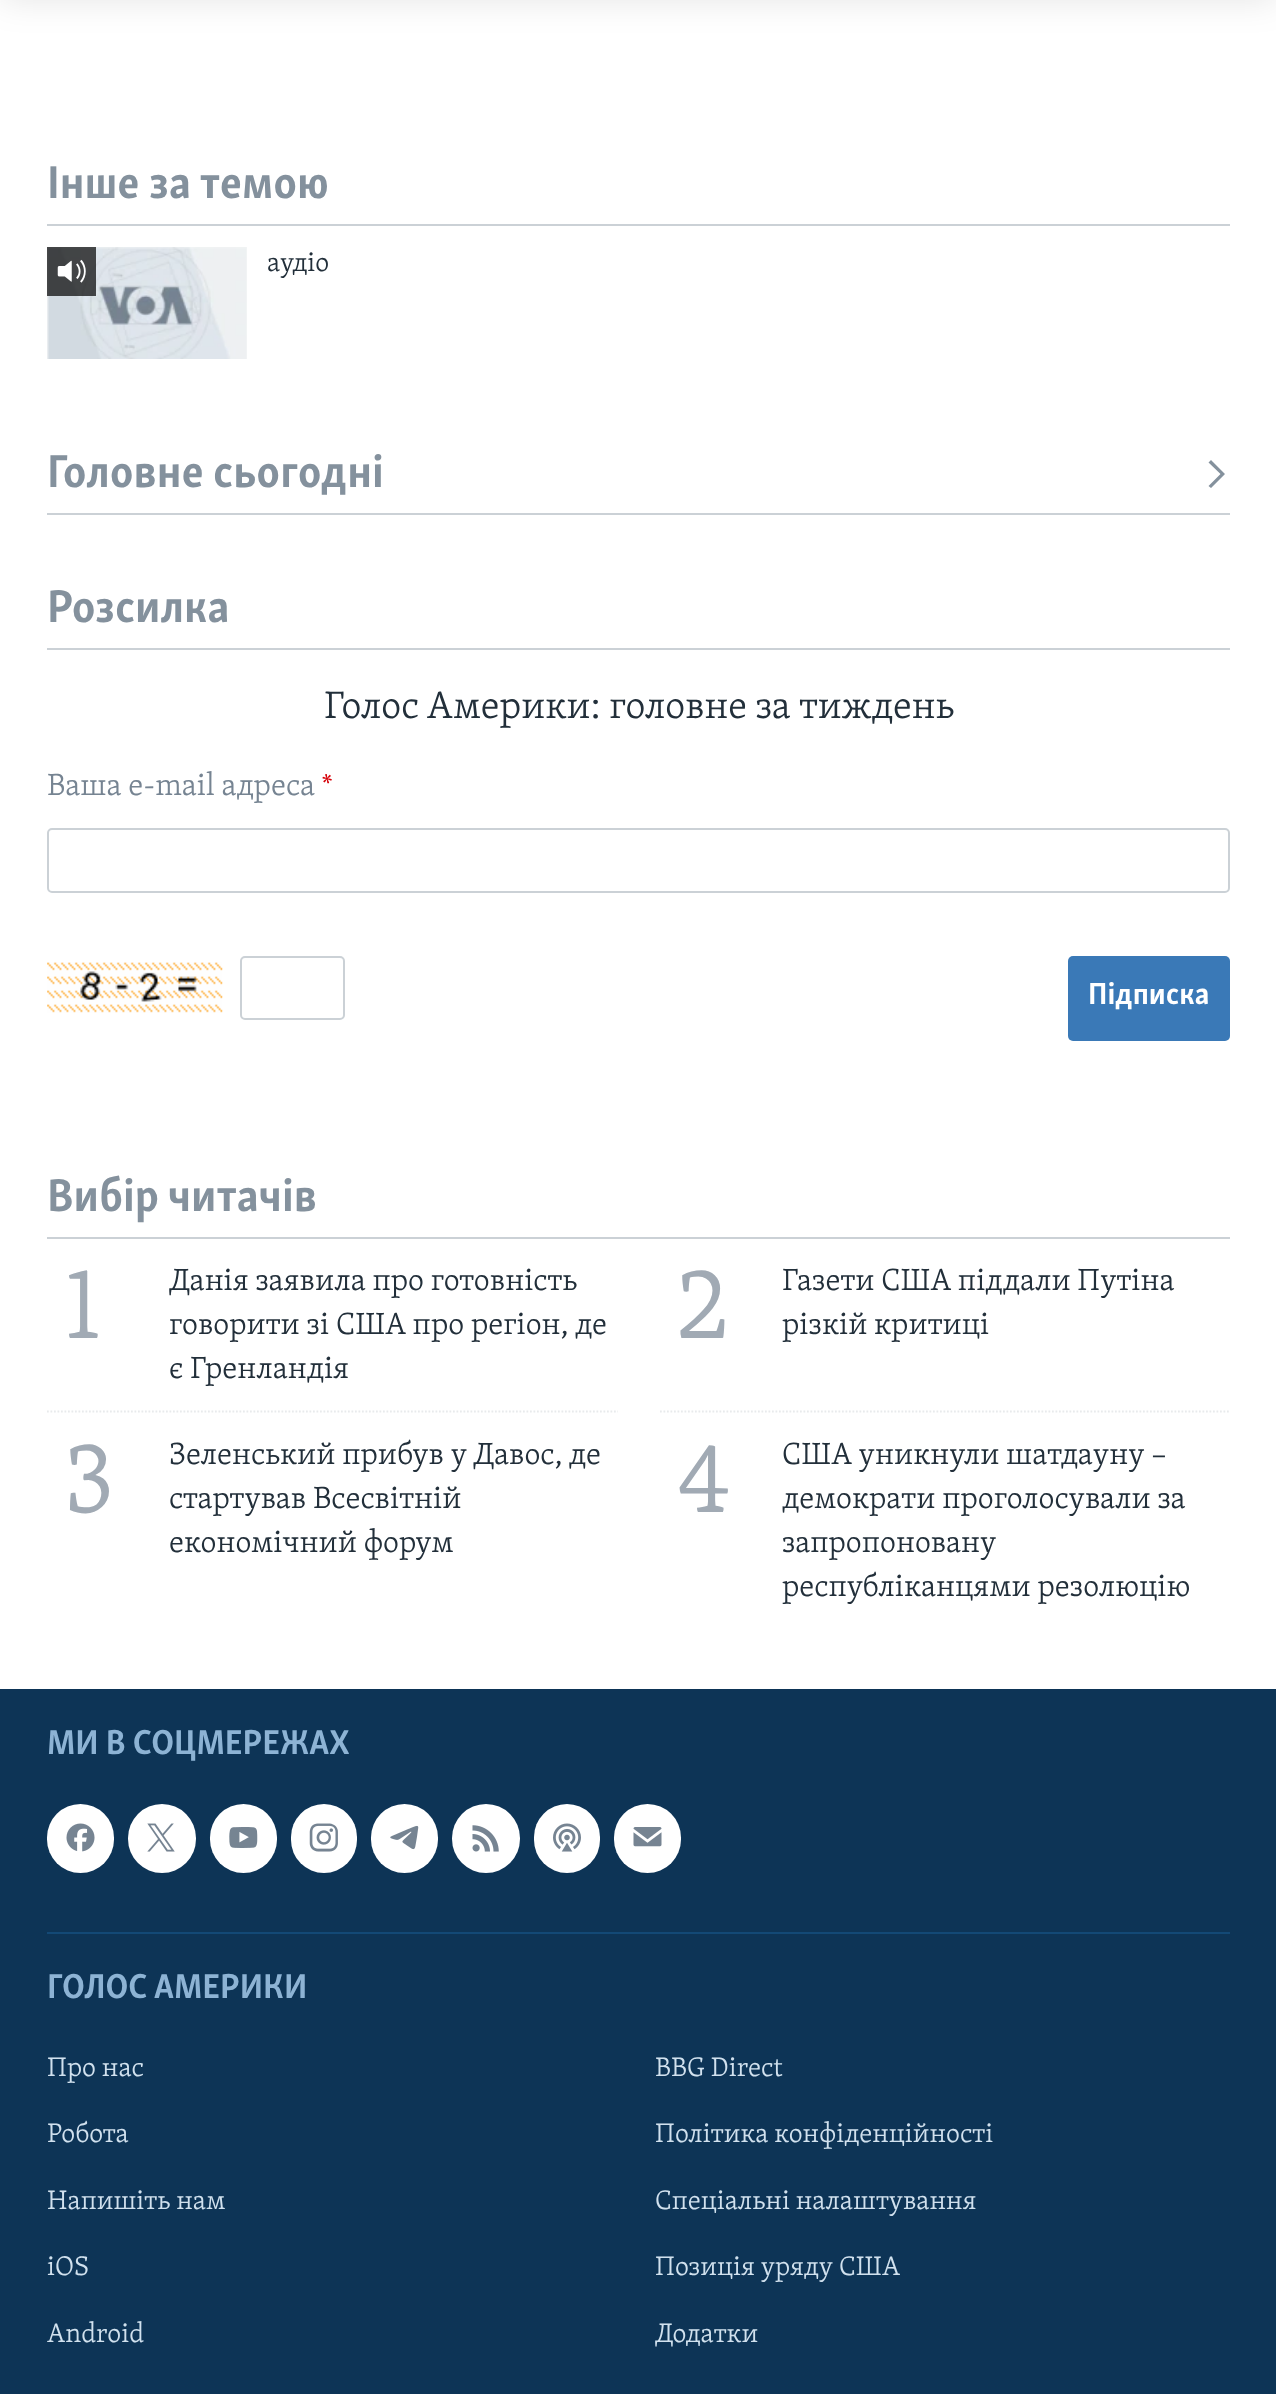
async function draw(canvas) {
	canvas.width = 1276;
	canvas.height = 2394;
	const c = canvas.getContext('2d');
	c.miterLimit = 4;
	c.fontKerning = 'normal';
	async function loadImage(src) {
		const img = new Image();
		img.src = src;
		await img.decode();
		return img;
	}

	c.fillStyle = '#fff';
	c.fillRect(0, 0, 1276, 2394);
	c.fillStyle = '#0000001a';
	c.filter = 'blur(17.5px)';
	c.beginPath();
	c.rect(0, -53, 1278, 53);
	c.fill();
	c.filter = 'none';
	c.fillStyle = '#cbd1d6';
	c.fillRect(47, 224, 1183, 2);
	c.font = 'bold 47.25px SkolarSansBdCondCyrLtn';
	c.fillStyle = '#84919d';
	c.fillText('Інше за темою', 47, 198);
	c.fillStyle = '#f6f7f8';
	c.fillRect(47, 247, 200, 112);
	c.drawImage(await loadImage('img1.png'), 47, 247, 200, 112);
	c.fillStyle = '#000000b3';
	c.fillRect(47, 247, 49, 49);
	c.drawImage(await loadImage('img2.png'), 57, 259, 29, 24);
	c.font = '300 27.5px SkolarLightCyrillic';
	c.fillStyle = '#222f3a';
	c.fillText('аудіо', 267, 271);
	c.fillStyle = '#cbd1d6';
	c.fillRect(47, 513, 1183, 2);
	c.font = 'bold 47.25px SkolarSansBdCondCyrLtn';
	c.fillStyle = '#84919d';
	c.fillText('Головне сьогодні', 47, 487);
	c.beginPath();
	c.moveTo(1211, 488);
	c.lineTo(1225, 474);
	c.lineTo(1211, 460);
	c.lineTo(1208.5, 462.5);
	c.lineTo(1220.5, 474);
	c.lineTo(1208.5, 486);
	c.closePath();
	c.fill();
	c.fillStyle = '#cbd1d6';
	c.fillRect(47, 648, 1183, 2);
	c.fillStyle = '#84919d';
	c.fillText('Розсилка', 47, 622);
	c.font = '300 39.4px SkolarLightCyrillic';
	c.fillStyle = '#222f3a';
	c.fillText('Голос Америки: головне за тиждень', 324, 718);
	c.font = '300 31.5px SkolarLightCyrillic';
	c.fillStyle = '#768492';
	c.fillText('Ваша e-mail адреса', 47, 795);
	c.font = '300 27.5px SkolarLightCyrillic';
	c.fillStyle = '#d60109';
	c.fillText('*', 322, 795);
	c.beginPath();
	c.roundRect(48, 829, 1181, 63, 4);
	c.strokeStyle = '#cbd1d6';
	c.lineWidth = 2;
	c.stroke();
	c.drawImage(await loadImage('img3.png'), 47, 962, 176, 51);
	c.beginPath();
	c.roundRect(241, 957, 103, 62, 4);
	c.stroke();
	c.fillStyle = '#3a79b7';
	c.beginPath();
	c.roundRect(1068, 956, 162, 85, 5);
	c.fill();
	c.font = 'bold 31.5px SkolarSansBdCondCyrLtn';
	c.fillStyle = '#fff';
	c.fillText('Підписка', 1088, 1004);
	c.fillStyle = '#cbd1d6';
	c.fillRect(47, 1237, 1183, 2);
	c.font = 'bold 47.25px SkolarSansBdCondCyrLtn';
	c.fillStyle = '#84919d';
	c.fillText('Вибір читачів', 47, 1211);
	c.font = '300 104px SkolarLightCyrillic';
	c.fillStyle = '#a1aab4';
	c.fillText('1', 63, 1338);
	c.font = '300 31.5px SkolarLightCyrillic';
	c.fillStyle = '#222f3a';
	for (const [text, x, y] of [
		['Данія заявила про готовність', 169, 1290],
		['говорити зі США про регіон, де', 169, 1334],
		['є Гренландія', 169, 1378],
	]) {
		c.fillText(text, x, y);
	}
	c.font = '300 104px SkolarLightCyrillic';
	c.fillStyle = '#a1aab4';
	c.fillText('2', 676, 1338);
	c.font = '300 31.5px SkolarLightCyrillic';
	c.fillStyle = '#222f3a';
	c.fillText('Газети США піддали Путіна', 782, 1290);
	c.fillText('різкій критиці', 782, 1334);
	c.beginPath();
	c.moveTo(47, 1411.5);
	c.lineTo(618, 1411.5);
	c.strokeStyle = '#e8eaec';
	c.lineWidth = 1.8;
	c.setLineDash([1.75, 1.75]);
	c.stroke();
	c.font = '300 104px SkolarLightCyrillic';
	c.fillStyle = '#a1aab4';
	c.fillText('3', 63, 1512);
	c.font = '300 31.5px SkolarLightCyrillic';
	c.fillStyle = '#222f3a';
	for (const [text, x, y] of [
		['Зеленський прибув у Давос, де', 169, 1464],
		['стартував Всесвітній', 169, 1508],
		['економічний форум', 169, 1552],
	]) {
		c.fillText(text, x, y);
	}
	c.beginPath();
	c.moveTo(660, 1411.5);
	c.lineTo(1230, 1411.5);
	c.stroke();
	c.font = '300 104px SkolarLightCyrillic';
	c.fillStyle = '#a1aab4';
	c.fillText('4', 676, 1512);
	c.font = '300 31.5px SkolarLightCyrillic';
	c.fillStyle = '#222f3a';
	for (const [text, x, y] of [
		['США уникнули шатдауну –', 782, 1464],
		['демократи проголосували за', 782, 1508],
		['запропоновану', 782, 1552],
		['республіканцями резолюцію', 782, 1596],
	]) {
		c.fillText(text, x, y);
	}
	c.fillStyle = '#0d3456';
	c.fillRect(0, 1689, 1276, 705);
	c.font = 'bold 35.5px SkolarSansBdCondCyrLtn';
	c.fillStyle = '#8db3d4';
	c.fillText('МИ В СОЦМЕРЕЖАХ', 47, 1754);
	c.fillStyle = '#fff';
	c.beginPath();
	c.roundRect(47, 1804, 67, 69, 33.5);
	c.fill();
	c.drawImage(await loadImage('img4.png'), 66, 1823, 29, 29);
	c.beginPath();
	c.roundRect(128, 1804, 68, 69, 34);
	c.fill();
	c.drawImage(await loadImage('img5.png'), 147, 1823, 28, 29);
	c.beginPath();
	c.roundRect(210, 1804, 67, 69, 33.5);
	c.fill();
	c.drawImage(await loadImage('img6.png'), 229, 1827, 29, 21);
	c.beginPath();
	c.roundRect(291, 1804, 66, 69, 33);
	c.fill();
	c.drawImage(await loadImage('img7.png'), 309, 1823, 29, 29);
	c.beginPath();
	c.roundRect(371, 1804, 67, 69, 33.5);
	c.fill();
	c.drawImage(await loadImage('img8.png'), 390, 1825, 29, 25);
	c.beginPath();
	c.roundRect(452, 1804, 68, 69, 34);
	c.fill();
	c.drawImage(await loadImage('img9.png'), 472, 1825, 27, 27);
	c.beginPath();
	c.roundRect(534, 1804, 66, 69, 33);
	c.fill();
	c.drawImage(await loadImage('img10.png'), 553, 1823, 28, 29);
	c.beginPath();
	c.roundRect(614, 1804, 67, 69, 33.5);
	c.fill();
	c.drawImage(await loadImage('img11.png'), 633, 1827, 29, 20);
	c.fillStyle = '#134976';
	c.fillRect(47, 1932, 1183, 2);
	c.fillStyle = '#8db3d4';
	c.fillText('ГОЛОС АМЕРИКИ', 47, 1998);
	c.font = '300 27.5px SkolarLightCyrillic';
	c.fillStyle = '#d1e1ee';
	for (const [text, x, y] of [
		['Про нас', 47, 2076],
		['BBG Direct', 655, 2076],
		['Робота', 47, 2142],
		['Політика конфіденційності', 655, 2142],
		['Напишіть нам', 47, 2209],
		['Спеціальні налаштування', 655, 2209],
		['iOS', 47, 2275],
		['Позиція уряду США', 655, 2275],
		['Android', 47, 2342],
		['Додатки', 655, 2342],
	]) {
		c.fillText(text, x, y);
	}
}

draw(document.querySelector('canvas'));
